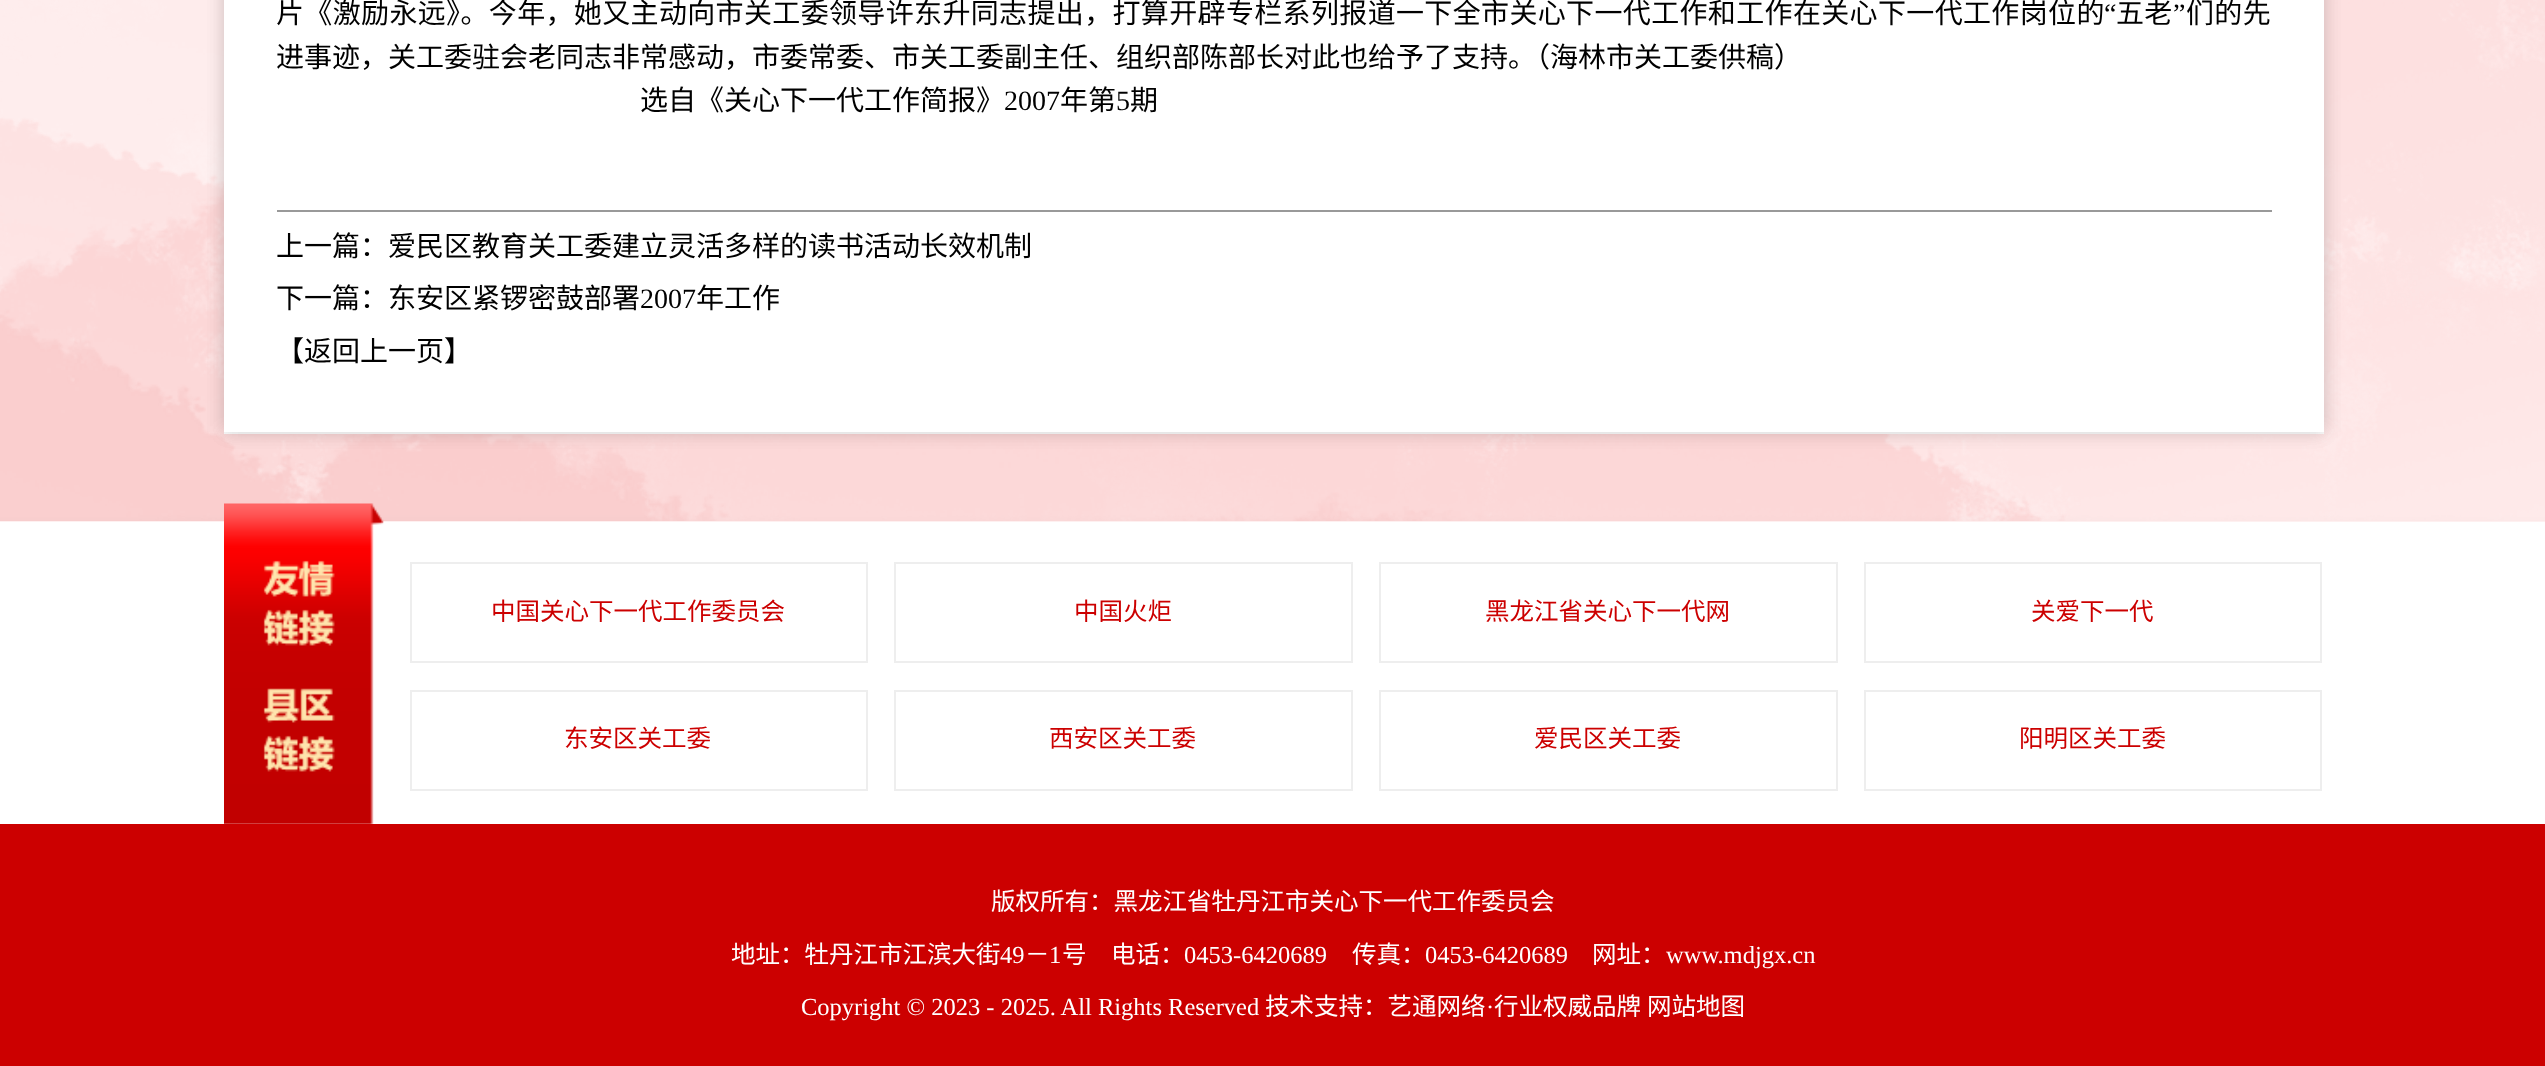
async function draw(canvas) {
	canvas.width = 2545;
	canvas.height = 1066;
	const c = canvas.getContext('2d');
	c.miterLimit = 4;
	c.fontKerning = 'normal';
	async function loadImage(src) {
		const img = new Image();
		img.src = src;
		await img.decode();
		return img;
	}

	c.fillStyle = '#fff';
	c.fillRect(0, 0, 2545, 1066);
	c.fillStyle = '#fef0f0';
	c.fillRect(0, 0, 2545, 522);
	c.drawImage(await loadImage('img1.png'), 0, 0, 2545, 521);
	c.fillStyle = '#fff';
	c.fillRect(224, 0, 2100, 434);
	c.save();
	c.beginPath();
	c.moveTo(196, 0);
	c.lineTo(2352, 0);
	c.lineTo(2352, 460);
	c.lineTo(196, 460);
	c.closePath();
	c.moveTo(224, -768);
	c.lineTo(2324, -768);
	c.lineTo(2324, 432);
	c.lineTo(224, 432);
	c.closePath();
	c.clip('evenodd');
	c.fillStyle = '#0000001a';
	c.filter = 'blur(9px)';
	c.beginPath();
	c.rect(224, -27, 2100, 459);
	c.fill();
	c.filter = 'none';
	c.restore();
	c.save();
	c.beginPath();
	c.moveTo(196, 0);
	c.lineTo(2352, 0);
	c.lineTo(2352, 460);
	c.lineTo(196, 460);
	c.closePath();
	c.moveTo(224, -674);
	c.lineTo(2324, -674);
	c.lineTo(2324, 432);
	c.lineTo(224, 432);
	c.closePath();
	c.clip('evenodd');
	c.fillStyle = '#0000001a';
	c.filter = 'blur(9px)';
	c.beginPath();
	c.rect(224, -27, 2100, 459);
	c.fill();
	c.filter = 'none';
	c.restore();
	c.letterSpacing = '0.35px';
	c.font = '28px Noto Sans CJK SC';
	c.fillStyle = '#000';
	c.fillText('片《激励永远》。今年，她又主动向市关工委领导许东升同志提出，打算开辟专栏系列报道一下全市关心下一代工作和工作在关心下一代工作岗位的', 276, 23);
	c.font = '28px Liberation Serif';
	c.fillText('“', 2104, 23);
	c.font = '28px Noto Sans CJK SC';
	c.fillText('五老', 2116, 23);
	c.font = '28px Liberation Serif';
	c.fillText('”', 2173, 23);
	c.font = '28px Noto Sans CJK SC';
	c.fillText('们的先', 2186, 23);
	c.letterSpacing = '0px';
	c.fillText('进事迹，关工委驻会老同志非常感动，市委常委、市关工委副主任、组织部陈部长对此也给予了支持。（海林市关工委供稿）', 276, 67);
	c.fillText('选自《关心下一代工作简报》', 640, 110);
	c.font = '28px Liberation Serif';
	c.fillText('2007', 1004, 110);
	c.font = '28px Noto Sans CJK SC';
	c.fillText('年第', 1060, 110);
	c.font = '28px Liberation Serif';
	c.fillText('5', 1116, 110);
	c.font = '28px Noto Sans CJK SC';
	c.fillText('期', 1130, 110);
	c.fillStyle = '#999';
	c.fillRect(277, 210, 1995, 2);
	c.fillStyle = '#000';
	c.fillText('上一篇：爱民区教育关工委建立灵活多样的读书活动长效机制', 276, 256);
	c.fillText('下一篇：东安区紧锣密鼓部署', 276, 308);
	c.font = '28px Liberation Serif';
	c.fillText('2007', 640, 308);
	c.font = '28px Noto Sans CJK SC';
	c.fillText('年工作', 696, 308);
	c.fillText('【返回上一页】', 276, 361);
	c.drawImage(await loadImage('img2.png'), 224, 503, 160, 321);
	c.strokeStyle = '#eee';
	c.lineWidth = 2;
	c.strokeRect(411, 563, 456, 99);
	c.font = '24.5px Noto Sans CJK SC';
	c.fillStyle = '#c00';
	c.fillText('中国关心下一代工作委员会', 491, 620);
	c.strokeRect(895, 563, 457, 99);
	c.fillText('中国火炬', 1074, 620);
	c.strokeRect(1380, 563, 457, 99);
	c.fillText('黑龙江省关心下一代网', 1485, 620);
	c.strokeRect(1865, 563, 456, 99);
	c.fillText('关爱下一代', 2031, 620);
	c.strokeRect(411, 691, 456, 99);
	c.fillText('东安区关工委', 564, 747);
	c.strokeRect(895, 691, 457, 99);
	c.fillText('西安区关工委', 1049, 747);
	c.strokeRect(1380, 691, 457, 99);
	c.fillText('爱民区关工委', 1534, 747);
	c.strokeRect(1865, 691, 456, 99);
	c.fillText('阳明区关工委', 2019, 747);
	c.fillRect(0, 824, 2545, 242);
	c.fillStyle = '#fff';
	c.fillText('版权所有：黑龙江省牡丹江市关心下一代工作委员会', 991, 910);
	c.fillText('地址：牡丹江市江滨大街', 731, 963);
	c.font = '24.5px Liberation Serif';
	c.fillText('49', 1000, 963);
	c.font = '24.5px Noto Sans CJK SC';
	c.fillText('－', 1025, 963);
	c.font = '24.5px Liberation Serif';
	c.fillText('1', 1049, 963);
	c.font = '24.5px Noto Sans CJK SC';
	c.fillText('号　电话：', 1062, 963);
	c.font = '24.5px Liberation Serif';
	c.fillText('0453-6420689', 1184, 963);
	c.font = '24.5px Noto Sans CJK SC';
	c.fillText('传真：', 1352, 963);
	c.font = '24.5px Liberation Serif';
	c.fillText('0453-6420689', 1425, 963);
	c.font = '24.5px Noto Sans CJK SC';
	c.fillText('网址：', 1592, 963);
	c.font = '24.5px Liberation Serif';
	c.fillText('www.mdjgx.cn', 1666, 963);
	c.fillText('Copyright © 2023 - 2025. All Rights Reserved', 801, 1015);
	c.font = '24.5px Noto Sans CJK SC';
	c.fillText('技术支持：艺通网络', 1265, 1015);
	c.font = '24.5px Liberation Serif';
	c.fillText('·', 1486, 1015);
	c.font = '24.5px Noto Sans CJK SC';
	c.fillText('行业权威品牌', 1494, 1015);
	c.fillText('网站地图', 1647, 1015);
}

draw(document.querySelector('canvas'));
